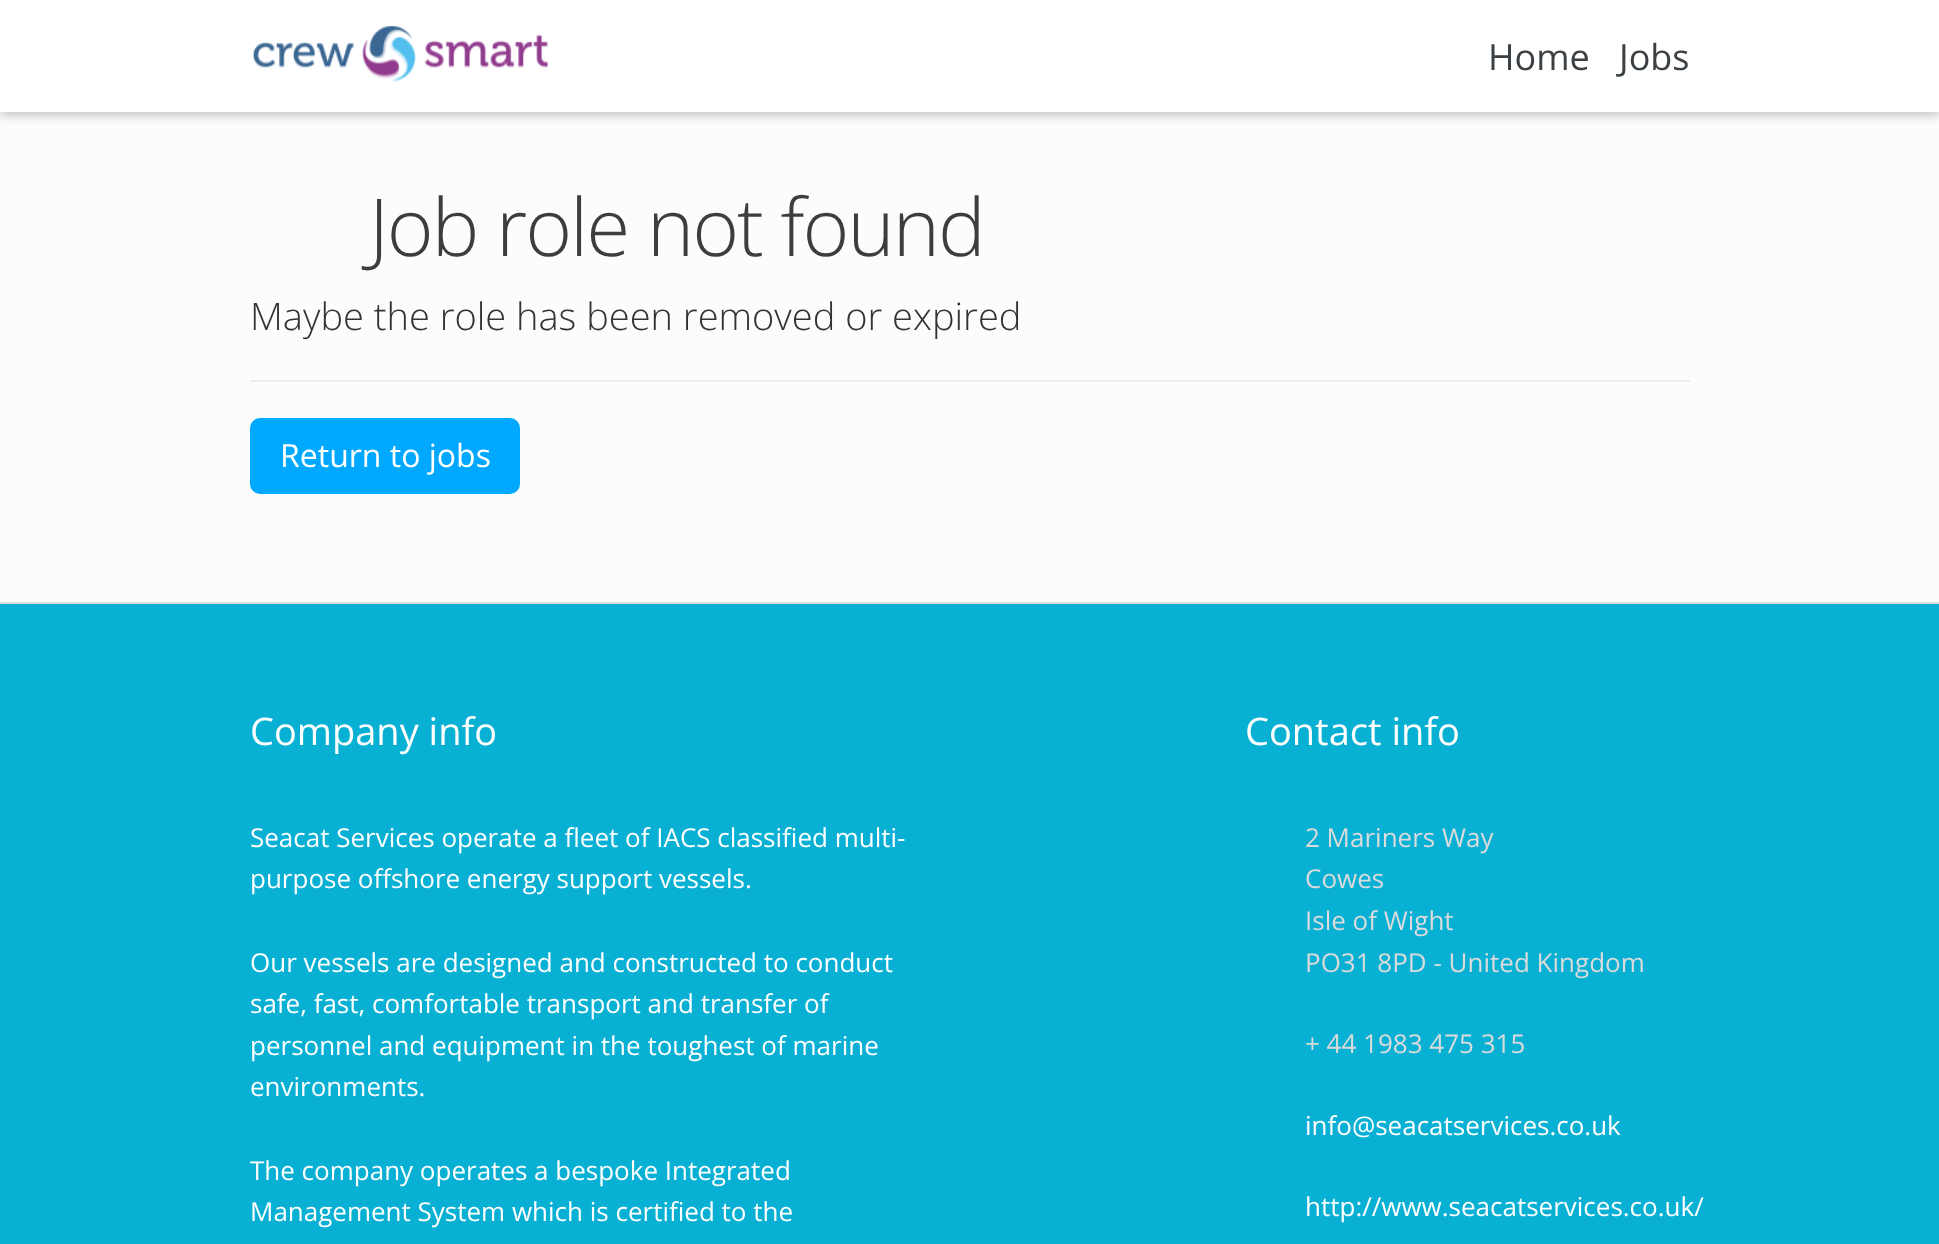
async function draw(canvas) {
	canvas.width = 1939;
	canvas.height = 1244;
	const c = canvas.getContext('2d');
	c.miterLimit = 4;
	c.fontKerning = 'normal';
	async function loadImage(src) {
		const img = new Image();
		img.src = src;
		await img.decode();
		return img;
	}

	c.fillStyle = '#fbfcfe';
	c.fillRect(0, 0, 1939, 1244);
	c.fillStyle = '#00000033';
	c.filter = 'blur(5px)';
	c.beginPath();
	c.rect(0, 4, 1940, 112);
	c.fill();
	c.filter = 'none';
	c.fillStyle = '#fff';
	c.fillRect(0, 0, 1939, 112);
	c.drawImage(await loadImage('img1.png'), 253, 26, 295, 57);
	c.font = '36px Open Sans';
	c.fillStyle = '#3b4044';
	c.fillText('Home', 1488, 70);
	c.fillText('Jobs', 1619, 70);
	c.fillStyle = '#ddd';
	c.fillRect(0, 602, 1939, 2);
	c.letterSpacing = '-2px';
	c.font = '300 80px Open Sans';
	c.fillStyle = '#3d3d3d';
	c.fillText('Job role not found', 369, 256);
	c.letterSpacing = '0px';
	c.font = '300 38px Open Sans';
	c.fillStyle = '#333';
	c.fillText('Maybe the role has been removed or expired', 250, 330);
	c.fillStyle = '#eee';
	c.fillRect(250, 380, 1440, 2);
	c.fillStyle = '#00a8ff';
	c.beginPath();
	c.roundRect(250, 418, 270, 76, 10);
	c.fill();
	c.font = '32px Open Sans';
	c.fillStyle = '#fff';
	c.fillText('Return to jobs', 280, 467);
	c.fillStyle = '#08b0d4';
	c.fillRect(0, 604, 1939, 640);
	c.font = '38px Open Sans';
	c.fillStyle = '#fff';
	c.fillText('Company info', 250, 745);
	c.font = '26px Open Sans';
	for (const [text, x, y] of [
		['Seacat Services operate a fleet of IACS classified multi-', 250, 847],
		['purpose offshore energy support vessels.', 250, 888],
		['Our vessels are designed and constructed to conduct', 250, 972],
		['safe, fast, comfortable transport and transfer of', 250, 1013],
		['personnel and equipment in the toughest of marine', 250, 1055],
		['environments.', 250, 1096],
		['The company operates a bespoke Integrated', 250, 1180],
		['Management System which is certified to the', 250, 1221],
	]) {
		c.fillText(text, x, y);
	}
	c.font = '38px Open Sans';
	c.fillText('Contact info', 1245, 745);
	c.font = '26px Open Sans';
	c.fillStyle = '#dbdbdb';
	for (const [text, x, y] of [
		['2 Mariners Way', 1305, 847],
		['Cowes', 1305, 888],
		['Isle of Wight', 1305, 930],
		['PO31 8PD - United Kingdom', 1305, 972],
		['+ 44 1983 475 315', 1305, 1053],
	]) {
		c.fillText(text, x, y);
	}
	c.fillStyle = '#fff';
	c.fillText('info@seacatservices.co.uk', 1305, 1135);
	c.fillText('http://www.seacatservices.co.uk/', 1305, 1216);
}

draw(document.querySelector('canvas'));
